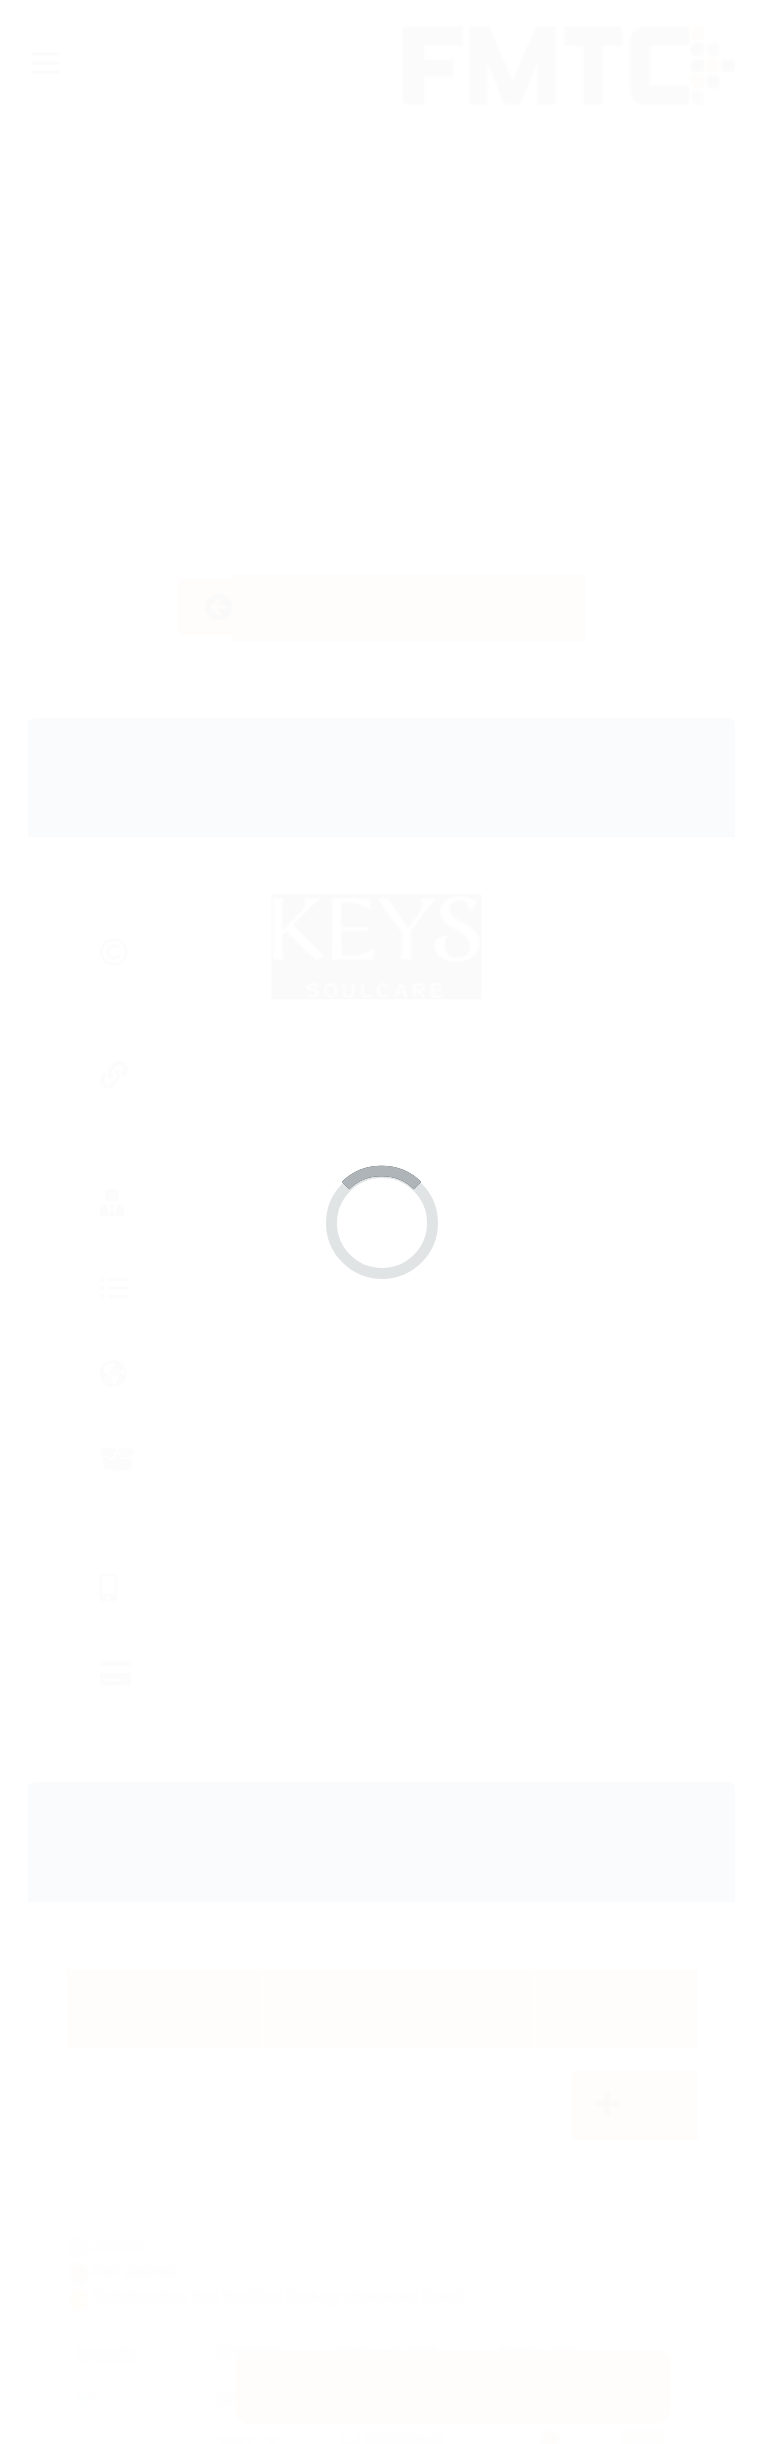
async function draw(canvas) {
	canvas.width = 762;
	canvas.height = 2444;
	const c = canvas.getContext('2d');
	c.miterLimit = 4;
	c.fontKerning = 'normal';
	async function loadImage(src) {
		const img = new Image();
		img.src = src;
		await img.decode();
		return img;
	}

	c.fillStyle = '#fff';
	c.fillRect(0, 0, 762, 2444);
	c.beginPath();
	c.moveTo(32.5, 63);
	c.lineTo(58.5, 63);
	c.moveTo(32.5, 54);
	c.lineTo(58.5, 54);
	c.moveTo(32.5, 72);
	c.lineTo(58.5, 72);
	c.strokeStyle = '#fbfbfb';
	c.lineWidth = 2.9;
	c.lineCap = 'round';
	c.lineJoin = 'round';
	c.stroke();
	c.drawImage(await loadImage('img1.png'), 402, 25, 333, 81);
	c.fillStyle = '#fffdfc';
	c.beginPath();
	c.roundRect(177, 579, 56, 56, [7, 0, 0, 7]);
	c.fill();
	c.beginPath();
	c.roundRect(233, 574, 353, 68, [0, 7, 7, 0]);
	c.fill();
	c.drawImage(await loadImage('img2.png'), 205, 593, 28, 28);
	c.fillStyle = '#fafbfc';
	c.beginPath();
	c.roundRect(28, 718, 707, 119, [7, 7, 0, 0]);
	c.fill();
	c.drawImage(await loadImage('img3.png'), 100, 938, 28, 28);
	c.drawImage(await loadImage('img4.png'), 271, 894, 211, 106);
	c.drawImage(await loadImage('img5.png'), 99, 1060, 29, 29);
	c.drawImage(await loadImage('img6.png'), 99, 1188, 26, 29);
	c.drawImage(await loadImage('img7.png'), 99, 1276, 29, 24);
	c.drawImage(await loadImage('img8.png'), 99, 1360, 28, 28);
	c.drawImage(await loadImage('img9.png'), 99, 1447, 36, 25);
	c.drawImage(await loadImage('img10.png'), 99, 1573, 19, 29);
	c.drawImage(await loadImage('img11.png'), 99, 1660, 33, 26);
	c.beginPath();
	c.roundRect(28, 1782, 707, 120, [7, 7, 0, 0]);
	c.fill();
	for (const [x, y, w, h, color] of [
		[67, 1969, 631, 79, '#fffdfc'],
		[261, 1967, 2, 82, '#fefeff'],
		[534, 1967, 2, 82, '#fefeff'],
	]) {
		c.fillStyle = color;
		c.fillRect(x, y, w, h);
	}
	c.fillStyle = '#fffdfc';
	c.beginPath();
	c.roundRect(571, 2070, 127, 70, [7, 0, 0, 7]);
	c.fill();
	c.drawImage(await loadImage('img12.png'), 595, 2091, 25, 25);
	c.drawImage(await loadImage('img13.png'), 66, 2235, 629, 209);
	c.fillStyle = '#fffdfb';
	c.beginPath();
	c.roundRect(236, 2350, 434, 74, 14);
	c.fill();
	c.beginPath();
	c.arc(382, 1223, 50.5, 0, 2 * Math.PI);
	c.strokeStyle = '#e0e3e4fa';
	c.lineWidth = 11;
	c.stroke();
	c.beginPath();
	c.moveTo(345.5, 1185.5);
	c.bezierCurveTo(365, 1166, 398, 1166, 417.5, 1185.5);
	c.strokeStyle = '#35444b';
	c.lineWidth = 10.5;
	c.lineCap = 'butt';
	c.lineJoin = 'miter';
	c.stroke();
	c.beginPath();
	c.moveTo(345.5, 1185.5);
	c.bezierCurveTo(365, 1166, 398, 1166, 417.5, 1185.5);
	c.strokeStyle = '#aeb4b7';
	c.stroke();
}

draw(document.querySelector('canvas'));
